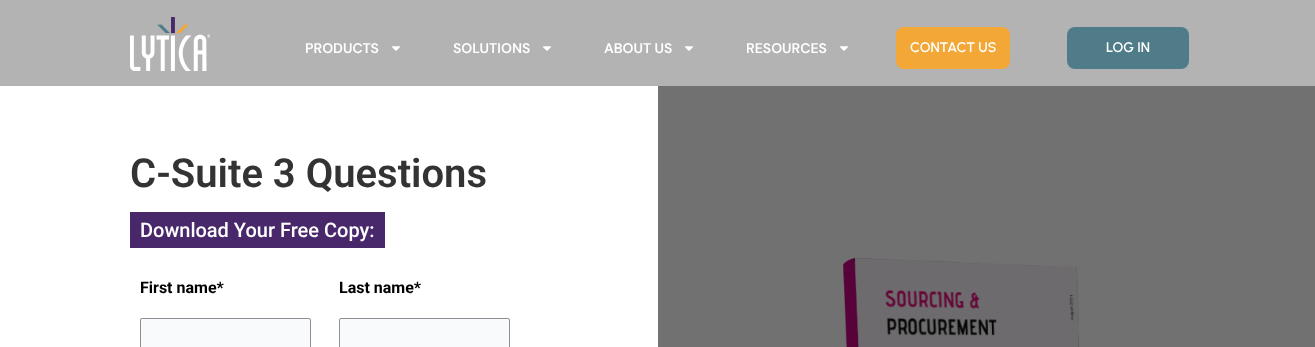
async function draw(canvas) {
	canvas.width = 1315;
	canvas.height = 347;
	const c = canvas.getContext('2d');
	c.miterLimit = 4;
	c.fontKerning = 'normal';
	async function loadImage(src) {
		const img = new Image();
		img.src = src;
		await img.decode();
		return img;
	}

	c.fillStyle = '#fff';
	c.fillRect(0, 0, 1315, 347);
	c.fillStyle = '#b3b3b3';
	c.fillRect(0, 0, 1315, 86);
	c.drawImage(await loadImage('img1.png'), 130, 17, 80, 54);
	c.font = '600 14px DM Sans';
	c.fillStyle = '#fff';
	c.fillText('PRODUCTS', 305, 53);
	c.drawImage(await loadImage('img2.png'), 392, 46, 8, 5);
	c.fillText('SOLUTIONS', 453, 53);
	c.drawImage(await loadImage('img2.png'), 543, 46, 8, 5);
	c.fillText('ABOUT US', 604, 53);
	c.drawImage(await loadImage('img2.png'), 685, 46, 8, 5);
	c.fillText('RESOURCES', 746, 53);
	c.drawImage(await loadImage('img2.png'), 840, 46, 8, 5);
	c.fillStyle = '#f3a737';
	c.beginPath();
	c.roundRect(896, 27, 114, 42, 8);
	c.fill();
	c.font = '600 14px Urbanist';
	c.fillStyle = '#fff';
	c.fillText('CONTACT US', 910, 52);
	c.fillStyle = '#507c89';
	c.beginPath();
	c.roundRect(1067, 27, 122, 42, 8);
	c.fill();
	c.fillStyle = '#fff';
	c.fillText('LOG IN', 1106, 52);
	c.font = '600 40px Roboto';
	c.fillStyle = '#333';
	c.fillText('C-Suite 3 Questions', 130, 187);
	c.fillStyle = '#48286a';
	c.fillRect(130, 212, 255, 36);
	c.font = '500 20px Roboto';
	c.fillStyle = '#fff';
	c.fillText('Download Your Free Copy:', 140, 237);
	c.font = 'bold 16px Roboto';
	c.fillStyle = '#000';
	c.fillText('First name*', 140, 293);
	c.fillStyle = '#f9fafb';
	c.beginPath();
	c.roundRect(140.5, 318.5, 170, 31, 1.5);
	c.fill();
	c.strokeStyle = '#8c8f94';
	c.stroke();
	c.fillStyle = '#000';
	c.fillText('Last name*', 339, 293);
	c.fillStyle = '#f9fafb';
	c.beginPath();
	c.roundRect(339.5, 318.5, 170, 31, 1.5);
	c.fill();
	c.stroke();
	c.drawImage(await loadImage('img3.png'), 658, 86, 657, 261);
}

draw(document.querySelector('canvas'));
